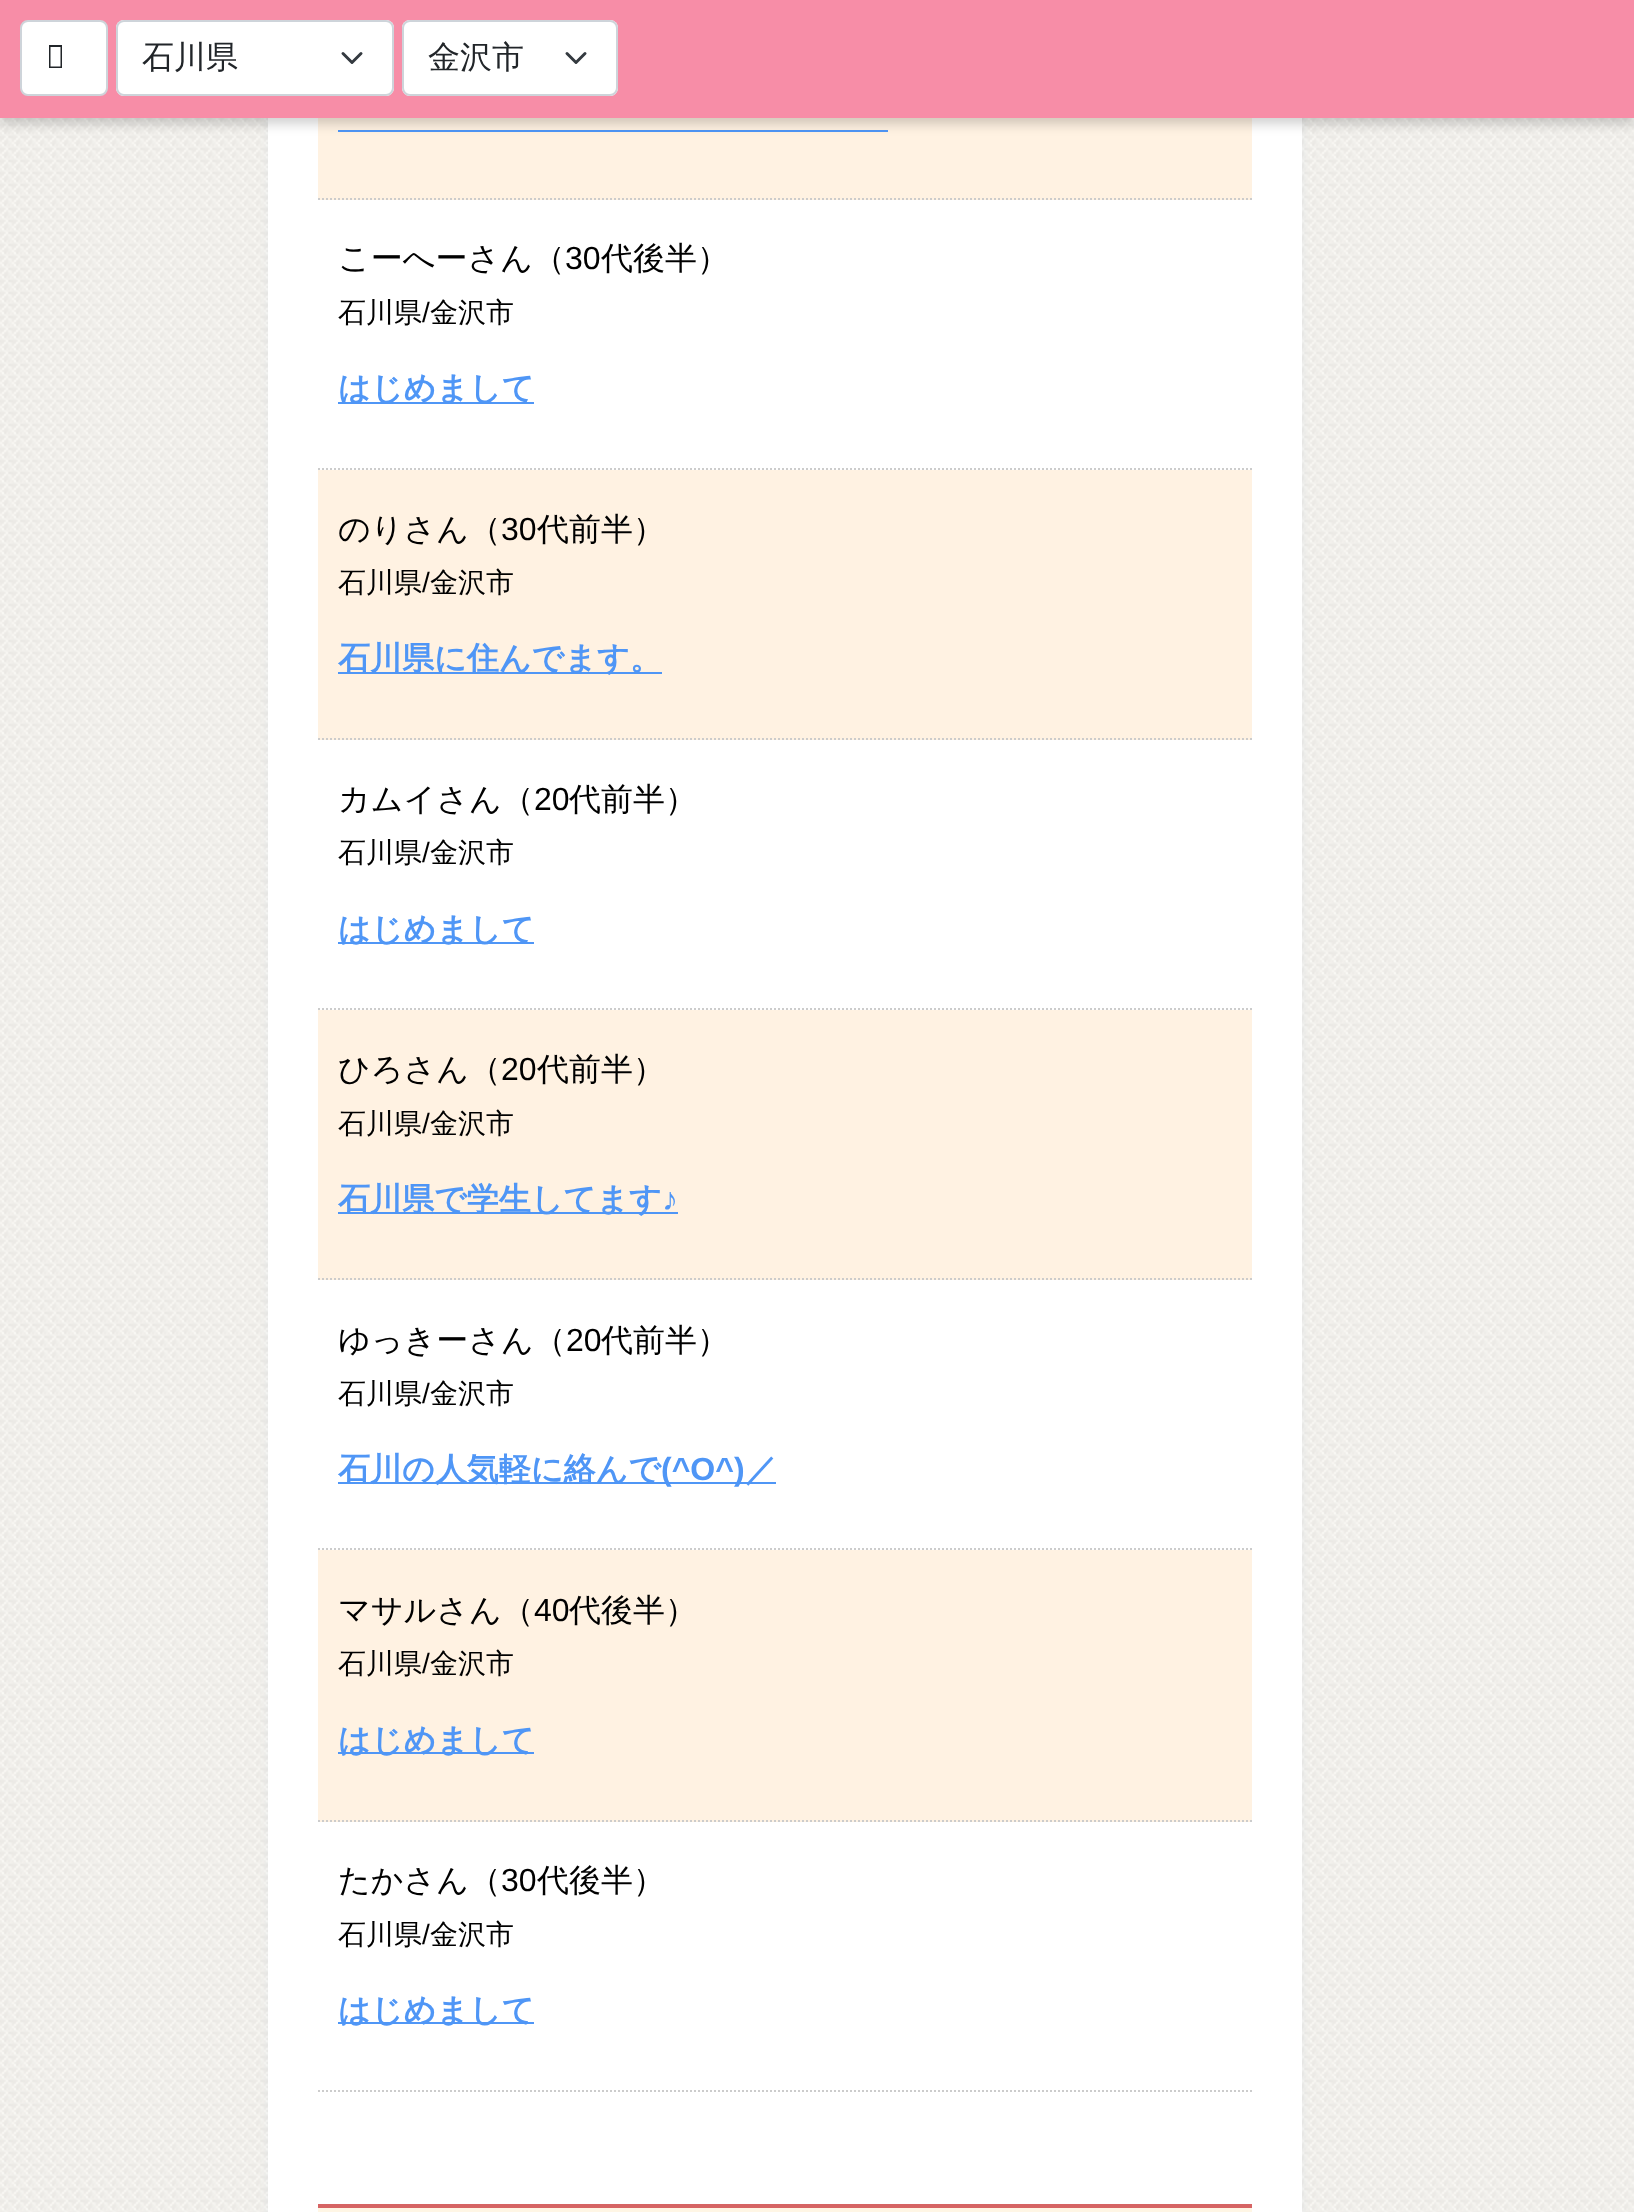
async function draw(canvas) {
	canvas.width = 1634;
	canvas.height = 2212;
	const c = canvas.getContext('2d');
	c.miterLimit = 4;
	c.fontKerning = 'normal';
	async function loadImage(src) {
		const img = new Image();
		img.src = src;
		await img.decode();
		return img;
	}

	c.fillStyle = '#fff';
	c.fillRect(0, 0, 1634, 2212);
	c.drawImage(await loadImage('img1.png'), 0, 118, 1634, 2094);
	c.fillStyle = '#4385bb12';
	c.filter = 'blur(4px)';
	c.beginPath();
	c.roundRect(268, -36, 1034, 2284, 24);
	c.fill();
	c.filter = 'none';
	for (const [x, y, w, h, color] of [
		[268, 118, 1034, 2094, '#fff'],
		[318, 118, 934, 82, '#fff2e2'],
		[338, 130, 550, 2, '#4f96f6'],
	]) {
		c.fillStyle = color;
		c.fillRect(x, y, w, h);
	}
	c.fillStyle = '#0000002e';
	c.filter = 'blur(6px)';
	c.beginPath();
	c.rect(0, 6, 1634, 118);
	c.fill();
	c.filter = 'none';
	c.fillStyle = '#f78da7';
	c.fillRect(0, 0, 1634, 118);
	c.fillStyle = '#fff';
	c.beginPath();
	c.roundRect(21, 21, 86, 74, 7);
	c.fill();
	c.strokeStyle = '#ced4da';
	c.lineWidth = 2;
	c.stroke();
	c.fillStyle = '#212529';
	c.beginPath();
	c.moveTo(49, 68);
	c.lineTo(49, 45);
	c.lineTo(62, 45);
	c.lineTo(62, 68);
	c.closePath();
	c.moveTo(50.5, 66.5);
	c.lineTo(60.5, 66.5);
	c.lineTo(60.5, 47);
	c.lineTo(50.5, 47);
	c.closePath();
	c.fill();
	c.fillStyle = '#fff';
	c.beginPath();
	c.roundRect(116, 20, 278, 76, 8);
	c.fill();
	c.beginPath();
	c.moveTo(343, 53.5);
	c.lineTo(352, 62.5);
	c.lineTo(361, 53.5);
	c.strokeStyle = '#343a40';
	c.lineWidth = 3;
	c.lineCap = 'round';
	c.lineJoin = 'round';
	c.stroke();
	c.beginPath();
	c.roundRect(117, 21, 276, 74, 7);
	c.strokeStyle = '#ced4da';
	c.lineWidth = 2;
	c.lineJoin = 'miter';
	c.stroke();
	c.font = '500 32px WenQuanYi Zen Hei';
	c.fillStyle = '#212529';
	c.fillText('石川県', 142, 68);
	c.fillStyle = '#fff';
	c.beginPath();
	c.roundRect(402, 20, 216, 76, 8);
	c.fill();
	c.beginPath();
	c.moveTo(567, 53.5);
	c.lineTo(576, 62.5);
	c.lineTo(585, 53.5);
	c.strokeStyle = '#343a40';
	c.lineWidth = 3;
	c.lineJoin = 'round';
	c.stroke();
	c.beginPath();
	c.roundRect(403, 21, 214, 74, 7);
	c.strokeStyle = '#ced4da';
	c.lineWidth = 2;
	c.lineJoin = 'miter';
	c.stroke();
	c.fillStyle = '#212529';
	c.fillText('金沢市', 428, 68);
	c.beginPath();
	c.moveTo(318, 199);
	c.lineTo(1252, 199);
	c.strokeStyle = '#ccc';
	c.lineCap = 'butt';
	c.setLineDash([2, 2]);
	c.stroke();
	c.beginPath();
	c.moveTo(318, 469);
	c.lineTo(1252, 469);
	c.stroke();
	c.fillStyle = '#000';
	c.fillText('こーへーさん（', 338, 269);
	c.font = '32px Liberation Sans';
	c.fillText('30', 565, 269);
	c.font = '500 32px WenQuanYi Zen Hei';
	c.fillText('代後半）', 601, 269);
	c.font = '500 28px WenQuanYi Zen Hei';
	c.fillText('石川県', 338, 322);
	c.font = '28px Liberation Sans';
	c.fillText('/', 422, 322);
	c.font = '500 28px WenQuanYi Zen Hei';
	c.fillText('金沢市', 430, 322);
	c.fillStyle = '#4f96f6';
	c.fillRect(338, 402, 196, 2);
	c.font = 'bold 32px WenQuanYi Zen Hei';
	c.fillText('はじめまして', 338, 399);
	c.fillStyle = '#fff2e2';
	c.fillRect(318, 470, 934, 270);
	c.beginPath();
	c.moveTo(318, 739);
	c.lineTo(1252, 739);
	c.stroke();
	c.font = '500 32px WenQuanYi Zen Hei';
	c.fillStyle = '#000';
	c.fillText('のりさん（', 338, 540);
	c.font = '32px Liberation Sans';
	c.fillText('30', 501, 540);
	c.font = '500 32px WenQuanYi Zen Hei';
	c.fillText('代前半）', 537, 540);
	c.font = '500 28px WenQuanYi Zen Hei';
	c.fillText('石川県', 338, 592);
	c.font = '28px Liberation Sans';
	c.fillText('/', 422, 592);
	c.font = '500 28px WenQuanYi Zen Hei';
	c.fillText('金沢市', 430, 592);
	c.fillStyle = '#4f96f6';
	c.fillRect(338, 672, 324, 2);
	c.font = 'bold 32px WenQuanYi Zen Hei';
	c.fillText('石川県に住んでます。', 338, 669);
	c.beginPath();
	c.moveTo(318, 1009);
	c.lineTo(1252, 1009);
	c.stroke();
	c.font = '500 32px WenQuanYi Zen Hei';
	c.fillStyle = '#000';
	c.fillText('カムイさん（', 338, 810);
	c.font = '32px Liberation Sans';
	c.fillText('20', 534, 810);
	c.font = '500 32px WenQuanYi Zen Hei';
	c.fillText('代前半）', 569, 810);
	c.font = '500 28px WenQuanYi Zen Hei';
	c.fillText('石川県', 338, 862);
	c.font = '28px Liberation Sans';
	c.fillText('/', 422, 862);
	c.font = '500 28px WenQuanYi Zen Hei';
	c.fillText('金沢市', 430, 862);
	c.fillStyle = '#4f96f6';
	c.fillRect(338, 942, 196, 2);
	c.font = 'bold 32px WenQuanYi Zen Hei';
	c.fillText('はじめまして', 338, 940);
	c.fillStyle = '#fff2e2';
	c.fillRect(318, 1010, 934, 270);
	c.beginPath();
	c.moveTo(318, 1279);
	c.lineTo(1252, 1279);
	c.stroke();
	c.font = '500 32px WenQuanYi Zen Hei';
	c.fillStyle = '#000';
	c.fillText('ひろさん（', 338, 1080);
	c.font = '32px Liberation Sans';
	c.fillText('20', 501, 1080);
	c.font = '500 32px WenQuanYi Zen Hei';
	c.fillText('代前半）', 537, 1080);
	c.font = '500 28px WenQuanYi Zen Hei';
	c.fillText('石川県', 338, 1133);
	c.font = '28px Liberation Sans';
	c.fillText('/', 422, 1133);
	c.font = '500 28px WenQuanYi Zen Hei';
	c.fillText('金沢市', 430, 1133);
	c.fillStyle = '#4f96f6';
	c.fillRect(338, 1212, 340, 2);
	c.font = 'bold 32px WenQuanYi Zen Hei';
	c.fillText('石川県で学生してます', 338, 1210);
	c.font = 'bold 32px Liberation Sans';
	c.fillText('♪', 662, 1210);
	c.beginPath();
	c.moveTo(318, 1549);
	c.lineTo(1252, 1549);
	c.stroke();
	c.font = '500 32px WenQuanYi Zen Hei';
	c.fillStyle = '#000';
	c.fillText('ゆっきーさん（', 338, 1351);
	c.font = '32px Liberation Sans';
	c.fillText('20', 566, 1351);
	c.font = '500 32px WenQuanYi Zen Hei';
	c.fillText('代前半）', 601, 1351);
	c.font = '500 28px WenQuanYi Zen Hei';
	c.fillText('石川県', 338, 1403);
	c.font = '28px Liberation Sans';
	c.fillText('/', 422, 1403);
	c.font = '500 28px WenQuanYi Zen Hei';
	c.fillText('金沢市', 430, 1403);
	c.fillStyle = '#4f96f6';
	c.fillRect(338, 1482, 438, 2);
	c.font = 'bold 32px WenQuanYi Zen Hei';
	c.fillText('石川の人気軽に絡んで', 338, 1480);
	c.font = 'bold 32px Liberation Sans';
	c.fillText('(^O^)', 661, 1480);
	c.font = 'bold 32px WenQuanYi Zen Hei';
	c.fillText('／', 745, 1480);
	c.fillStyle = '#fff2e2';
	c.fillRect(318, 1550, 934, 272);
	c.beginPath();
	c.moveTo(318, 1821);
	c.lineTo(1252, 1821);
	c.stroke();
	c.font = '500 32px WenQuanYi Zen Hei';
	c.fillStyle = '#000';
	c.fillText('マサルさん（', 338, 1621);
	c.font = '32px Liberation Sans';
	c.fillText('40', 534, 1621);
	c.font = '500 32px WenQuanYi Zen Hei';
	c.fillText('代後半）', 569, 1621);
	c.font = '500 28px WenQuanYi Zen Hei';
	c.fillText('石川県', 338, 1673);
	c.font = '28px Liberation Sans';
	c.fillText('/', 422, 1673);
	c.font = '500 28px WenQuanYi Zen Hei';
	c.fillText('金沢市', 430, 1673);
	c.fillStyle = '#4f96f6';
	c.fillRect(338, 1752, 196, 2);
	c.font = 'bold 32px WenQuanYi Zen Hei';
	c.fillText('はじめまして', 338, 1751);
	c.beginPath();
	c.moveTo(318, 2091);
	c.lineTo(1252, 2091);
	c.stroke();
	c.font = '500 32px WenQuanYi Zen Hei';
	c.fillStyle = '#000';
	c.fillText('たかさん（', 338, 1891);
	c.font = '32px Liberation Sans';
	c.fillText('30', 501, 1891);
	c.font = '500 32px WenQuanYi Zen Hei';
	c.fillText('代後半）', 537, 1891);
	c.font = '500 28px WenQuanYi Zen Hei';
	c.fillText('石川県', 338, 1944);
	c.font = '28px Liberation Sans';
	c.fillText('/', 422, 1944);
	c.font = '500 28px WenQuanYi Zen Hei';
	c.fillText('金沢市', 430, 1944);
	c.fillStyle = '#4f96f6';
	c.fillRect(338, 2022, 196, 2);
	c.font = 'bold 32px WenQuanYi Zen Hei';
	c.fillText('はじめまして', 338, 2021);
	c.fillStyle = '#fff6e5';
	c.fillRect(318, 2208, 934, 4);
	c.fillStyle = '#d66464';
	c.fillRect(318, 2204, 934, 4);
}

draw(document.querySelector('canvas'));
